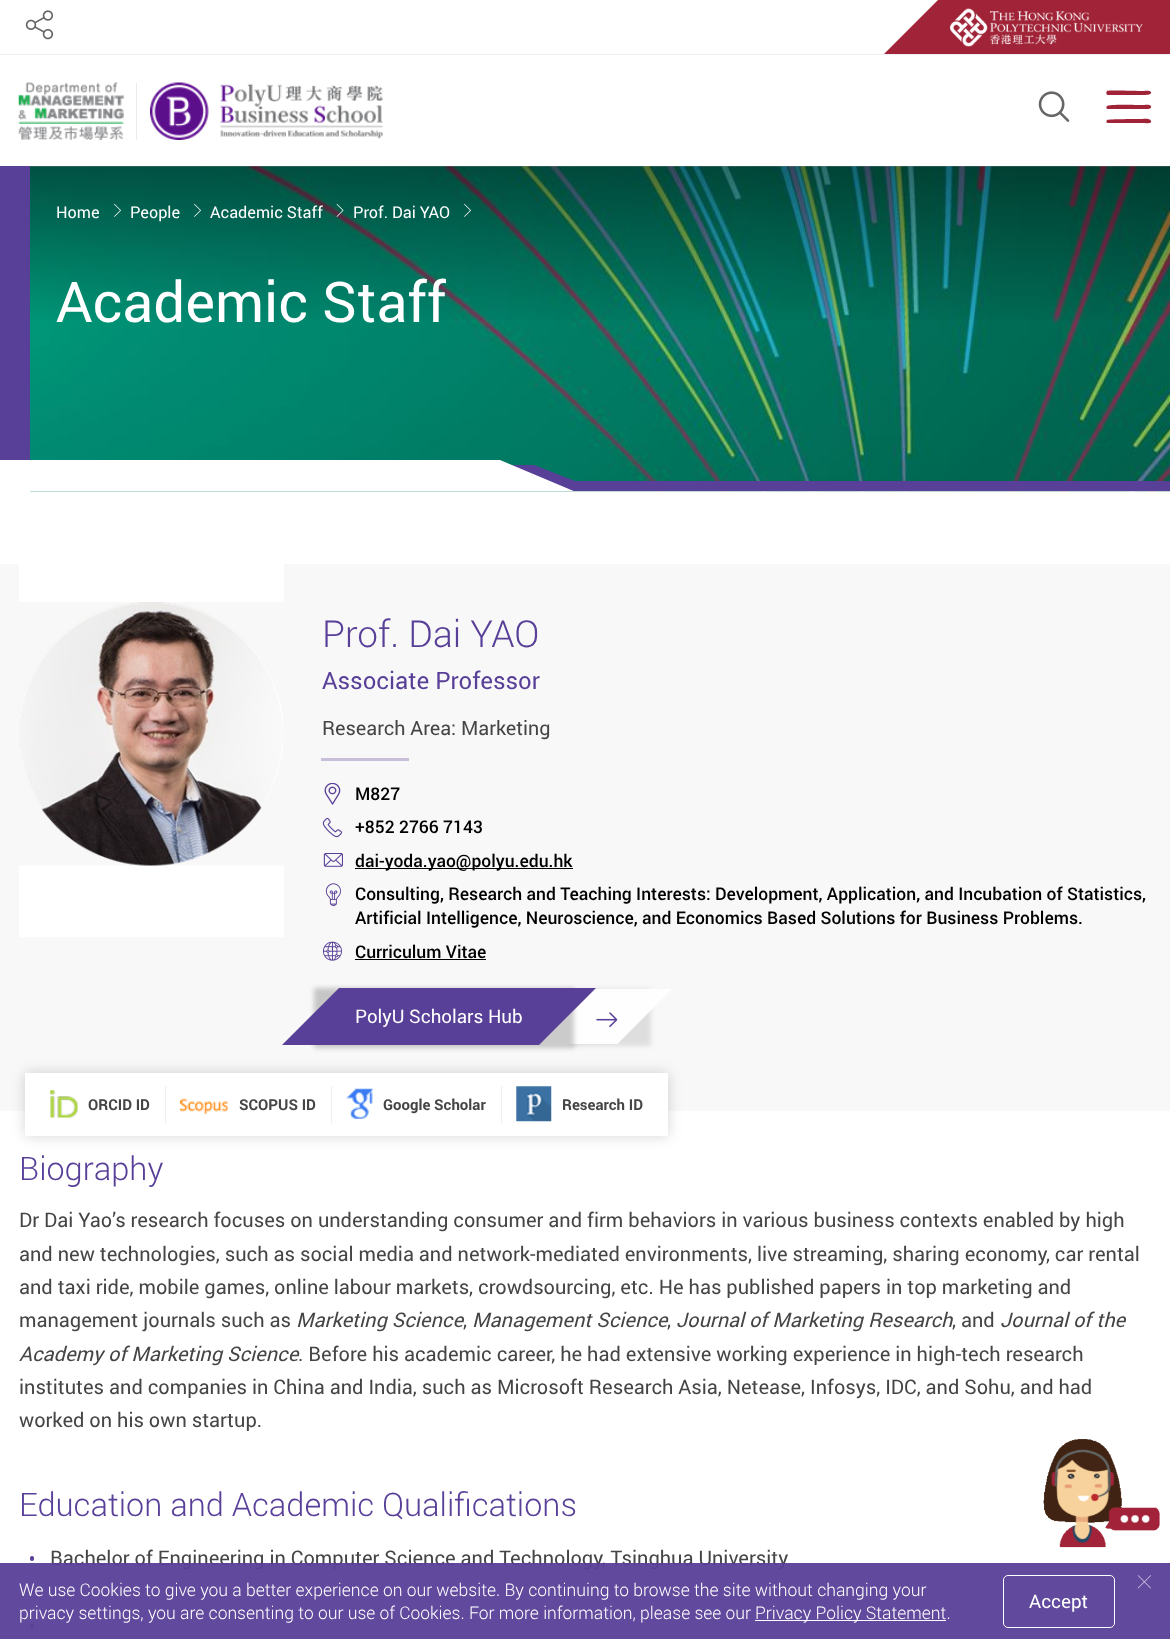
async function draw(canvas) {
	canvas.width = 1170;
	canvas.height = 1639;
	const c = canvas.getContext('2d');
	c.miterLimit = 4;
	c.fontKerning = 'normal';
	async function loadImage(src) {
		const img = new Image();
		img.src = src;
		await img.decode();
		return img;
	}
	let gradient;

	c.fillStyle = '#fff';
	c.fillRect(0, 0, 1170, 1639);
	c.fillStyle = '#f1f1f1';
	c.fillRect(0, 54, 1170, 1);
	c.drawImage(await loadImage('img1.png'), 25, 10, 29, 30);
	c.fillStyle = '#a02337';
	c.beginPath();
	c.moveTo(938, 0);
	c.lineTo(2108, 0);
	c.lineTo(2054, 54);
	c.lineTo(884, 54);
	c.closePath();
	c.fill();
	c.drawImage(await loadImage('img2.png'), 950, 8, 193, 39);
	c.drawImage(await loadImage('img3.png'), 1038, 91, 32, 31);
	c.beginPath();
	c.moveTo(1108, 95);
	c.lineTo(1142, 95);
	c.bezierCurveTo(1146, 95, 1152, 95, 1151, 92);
	c.bezierCurveTo(1150, 90, 1144, 91, 1142, 91);
	c.bezierCurveTo(1138, 91, 1108, 90, 1107, 91);
	c.bezierCurveTo(1106, 92, 1106, 95, 1108, 95);
	c.closePath();
	c.moveTo(1108, 109);
	c.lineTo(1142, 109);
	c.bezierCurveTo(1146, 109, 1152, 110, 1151, 106);
	c.bezierCurveTo(1150, 104, 1144, 105, 1142, 105);
	c.bezierCurveTo(1138, 105, 1108, 104, 1107, 106);
	c.bezierCurveTo(1106, 107, 1106, 109, 1108, 109);
	c.closePath();
	c.moveTo(1108, 123);
	c.lineTo(1142, 123);
	c.bezierCurveTo(1146, 123, 1152, 124, 1151, 121);
	c.bezierCurveTo(1150, 118, 1144, 119, 1142, 119);
	c.bezierCurveTo(1138, 119, 1108, 119, 1107, 120);
	c.bezierCurveTo(1106, 121, 1106, 123, 1108, 123);
	c.closePath();
	c.fill();
	c.drawImage(await loadImage('img4.png'), 18, 82, 106, 58);
	c.fillStyle = '#ebebeb';
	c.fillRect(136, 83, 1, 57);
	c.drawImage(await loadImage('img5.png'), 150, 82, 233, 58);
	c.fillStyle = '#583f98';
	c.fillRect(0, 166, 30, 294);
	c.drawImage(await loadImage('img6.png'), 30, 166, 1140, 326);
	gradient = c.createLinearGradient(600, 166, 600, 329);
	gradient.addColorStop(0, '#00000069');
	gradient.addColorStop(1, '#00000000');
	c.fillStyle = gradient;
	c.fillRect(30, 166, 1140, 154);
	c.fillStyle = '#fff';
	c.fillRect(30, 460, 470, 31);
	c.fillStyle = '#583f98';
	c.fillRect(561, 481, 609, 10);
	c.save();
	c.beginPath();
	c.rect(0, 460, 1170, 31);
	c.clip();
	c.beginPath();
	c.moveTo(505, 465);
	c.lineTo(534, 465);
	c.lineTo(606, 493);
	c.lineTo(577, 493);
	c.closePath();
	c.fill();
	c.fillStyle = '#fff';
	c.beginPath();
	c.moveTo(500, 492);
	c.lineTo(500, 460);
	c.lineTo(576, 492);
	c.closePath();
	c.fill();
	c.restore();
	c.font = '16.25px Roboto';
	c.fillStyle = '#fff';
	c.fillText('Home', 56, 218);
	c.drawImage(await loadImage('img7.png'), 114, 204, 7, 13);
	c.fillText('People', 130, 218);
	c.drawImage(await loadImage('img8.png'), 194, 204, 7, 13);
	c.fillText('Academic Staff', 210, 218);
	c.drawImage(await loadImage('img9.png'), 336, 204, 8, 13);
	c.fillText('Prof. Dai YAO', 353, 218);
	c.drawImage(await loadImage('img10.png'), 464, 204, 7, 13);
	c.save();
	c.beginPath();
	c.rect(46, 271, 400, 103);
	c.clip();
	c.font = '56.25px Roboto';
	c.fillText('Academic Staff', 56, 322);
	c.restore();
	c.fillStyle = '#f8f8f8';
	c.fillRect(0, 564, 1170, 547);
	c.drawImage(await loadImage('img11.png'), 19, 564, 265, 373);
	c.font = '300 37.25px Roboto';
	c.fillStyle = '#583f98';
	c.fillText('Prof. Dai YAO', 322, 647);
	c.font = '24px Roboto';
	c.fillText('Associate Professor', 322, 689);
	c.font = '19.75px Roboto';
	c.fillStyle = '#454545';
	c.fillText('Research Area: Marketing', 322, 735);
	c.fillStyle = '#c8c0db';
	c.fillRect(321, 758, 88, 3);
	c.drawImage(await loadImage('img12.png'), 324, 783, 17, 22);
	c.font = '500 17.5px Roboto';
	c.fillStyle = '#000';
	c.fillText('M827', 355, 800);
	c.drawImage(await loadImage('img13.png'), 322, 817, 20, 21);
	c.fillText('+852 2766 7143', 355, 833);
	c.drawImage(await loadImage('img14.png'), 323, 853, 20, 14);
	c.fillRect(355, 868, 218, 1);
	c.fillText('dai-yoda.yao@polyu.edu.hk', 355, 867);
	c.drawImage(await loadImage('img15.png'), 325, 883, 16, 24);
	c.fillText('Consulting, Research and Teaching Interests: Development, Application, and Incubation of Statistics,', 355, 900);
	c.fillText('Artificial Intelligence, Neuroscience, and Economics Based Solutions for Business Problems.', 355, 924);
	c.drawImage(await loadImage('img16.png'), 322, 941, 20, 20);
	c.fillText('Curriculum Vitae', 355, 958);
	c.fillRect(355, 959, 131, 1);
	c.save();
	c.beginPath();
	c.moveTo(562, 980);
	c.lineTo(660, 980);
	c.lineTo(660, 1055);
	c.lineTo(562, 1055);
	c.closePath();
	c.moveTo(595, 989);
	c.lineTo(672, 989);
	c.lineTo(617.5, 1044);
	c.lineTo(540, 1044);
	c.closePath();
	c.clip('evenodd');
	c.fillStyle = '#0000001a';
	c.filter = 'blur(2.5px)';
	c.beginPath();
	c.rect(571, 989, 80, 57);
	c.fill();
	c.filter = 'none';
	c.restore();
	c.fillStyle = '#ffffffcc';
	c.beginPath();
	c.moveTo(595, 989);
	c.lineTo(672, 989);
	c.lineTo(617, 1044);
	c.lineTo(540, 1044);
	c.closePath();
	c.fill();
	c.fillStyle = '#00000033';
	c.filter = 'blur(2.5px)';
	c.beginPath();
	c.rect(314, 988, 260, 60);
	c.fill();
	c.filter = 'none';
	c.fillStyle = '#583f98';
	c.beginPath();
	c.moveTo(339, 988);
	c.lineTo(596, 988);
	c.lineTo(539, 1045);
	c.lineTo(282, 1045);
	c.closePath();
	c.fill();
	c.font = '18.75px Roboto';
	c.fillStyle = '#fff';
	c.fillText('PolyU Scholars Hub', 355, 1023);
	c.drawImage(await loadImage('img17.png'), 596, 1012, 22, 16);
	c.fillStyle = '#0000002b';
	c.filter = 'blur(7px)';
	c.beginPath();
	c.rect(25, 1073, 643, 63);
	c.fill();
	c.filter = 'none';
	c.fillStyle = '#fff';
	c.fillRect(25, 1073, 643, 63);
	c.drawImage(await loadImage('img18.png'), 50, 1090, 28, 28);
	c.font = 'bold 15px Roboto';
	c.fillStyle = '#454545';
	c.fillText('ORCID ID', 88, 1110);
	c.fillStyle = '#efeeee';
	c.fillRect(165, 1086, 1, 37);
	c.drawImage(await loadImage('img19.png'), 180, 1098, 48, 16);
	c.fillStyle = '#454545';
	c.fillText('SCOPUS ID', 239, 1110);
	c.fillStyle = '#efeeee';
	c.fillRect(331, 1086, 1, 37);
	c.drawImage(await loadImage('img20.png'), 346, 1088, 27, 31);
	c.fillStyle = '#454545';
	c.fillText('Google Scholar', 383, 1110);
	c.fillStyle = '#efeeee';
	c.fillRect(501, 1086, 1, 37);
	c.drawImage(await loadImage('img21.png'), 516, 1086, 36, 36);
	c.fillStyle = '#454545';
	c.fillText('Research ID', 562, 1110);
	c.font = '300 32.5px Roboto';
	c.fillStyle = '#583f98';
	c.fillText('Biography', 19, 1180);
	c.font = '20px Roboto';
	c.fillStyle = '#454545';
	for (const [text, x, y] of [
		['Dr Dai Yao’s research focuses on understanding consumer and firm behaviors in various business contexts enabled by high', 19, 1227],
		['and new technologies, such as social media and network-mediated environments, live streaming, sharing economy, car rental', 19, 1261],
		['and taxi ride, mobile games, online labour markets, crowdsourcing, etc. He has published papers in top marketing and', 19, 1294],
		['management journals such as', 19, 1327],
	]) {
		c.fillText(text, x, y);
	}
	c.font = 'italic 20px Roboto';
	c.fillText('Marketing Science', 296, 1327);
	c.font = '20px Roboto';
	c.fillText(',', 463, 1327);
	c.font = 'italic 20px Roboto';
	c.fillText('Management Science', 472, 1327);
	c.font = '20px Roboto';
	c.fillText(',', 667, 1327);
	c.font = 'italic 20px Roboto';
	c.fillText('Journal of Marketing Research', 676, 1327);
	c.font = '20px Roboto';
	c.fillText(', and', 952, 1327);
	c.font = 'italic 20px Roboto';
	c.fillText('Journal of the', 1000, 1327);
	c.fillText('Academy of Marketing Science', 19, 1361);
	c.font = '20px Roboto';
	for (const [text, x, y] of [
		['. Before his academic career, he had extensive working experience in high-tech research', 298, 1361],
		['institutes and companies in China and India, such as Microsoft Research Asia, Netease, Infosys, IDC, and Sohu, and had', 19, 1394],
		['worked on his own startup.', 19, 1427],
	]) {
		c.fillText(text, x, y);
	}
	c.font = '300 32.5px Roboto';
	c.fillStyle = '#583f98';
	c.fillText('Education and Academic Qualifications', 19, 1516);
	c.beginPath();
	c.roundRect(30, 1556, 4, 5, 2);
	c.fill();
	c.font = '20px Roboto';
	c.fillStyle = '#454545';
	c.fillText('Bachelor of Engineering in Computer Science and Technology, Tsinghua University', 50, 1565);
	c.fillStyle = '#583f98';
	c.beginPath();
	c.arc(32, 1592, 2, 0, 2 * Math.PI);
	c.fill();
	c.beginPath();
	c.arc(32, 1626, 2, 0, 2 * Math.PI);
	c.fill();
	c.drawImage(await loadImage('img22.png'), 1043, 1439, 117, 109);
	c.fillStyle = '#583f98f2';
	c.fillRect(0, 1563, 1170, 76);
	c.font = '300 17.5px Roboto';
	c.fillStyle = '#fff';
	c.fillText('We use Cookies to give you a better experience on our website. By continuing to browse the site without changing your', 19, 1596);
	c.fillText('privacy settings, you are consenting to our use of Cookies. For more information, please see our', 19, 1619);
	c.fillRect(755, 1620, 191, 1);
	c.fillText('Privacy Policy Statement.', 755, 1619);
	c.beginPath();
	c.roundRect(1003.5, 1575.5, 111, 52, 4.5);
	c.strokeStyle = '#fff';
	c.stroke();
	c.font = '18.75px Roboto';
	c.fillText('Accept', 1029, 1608);
	c.drawImage(await loadImage('img23.png'), 1137, 1575, 14, 14);
}

draw(document.querySelector('canvas'));
